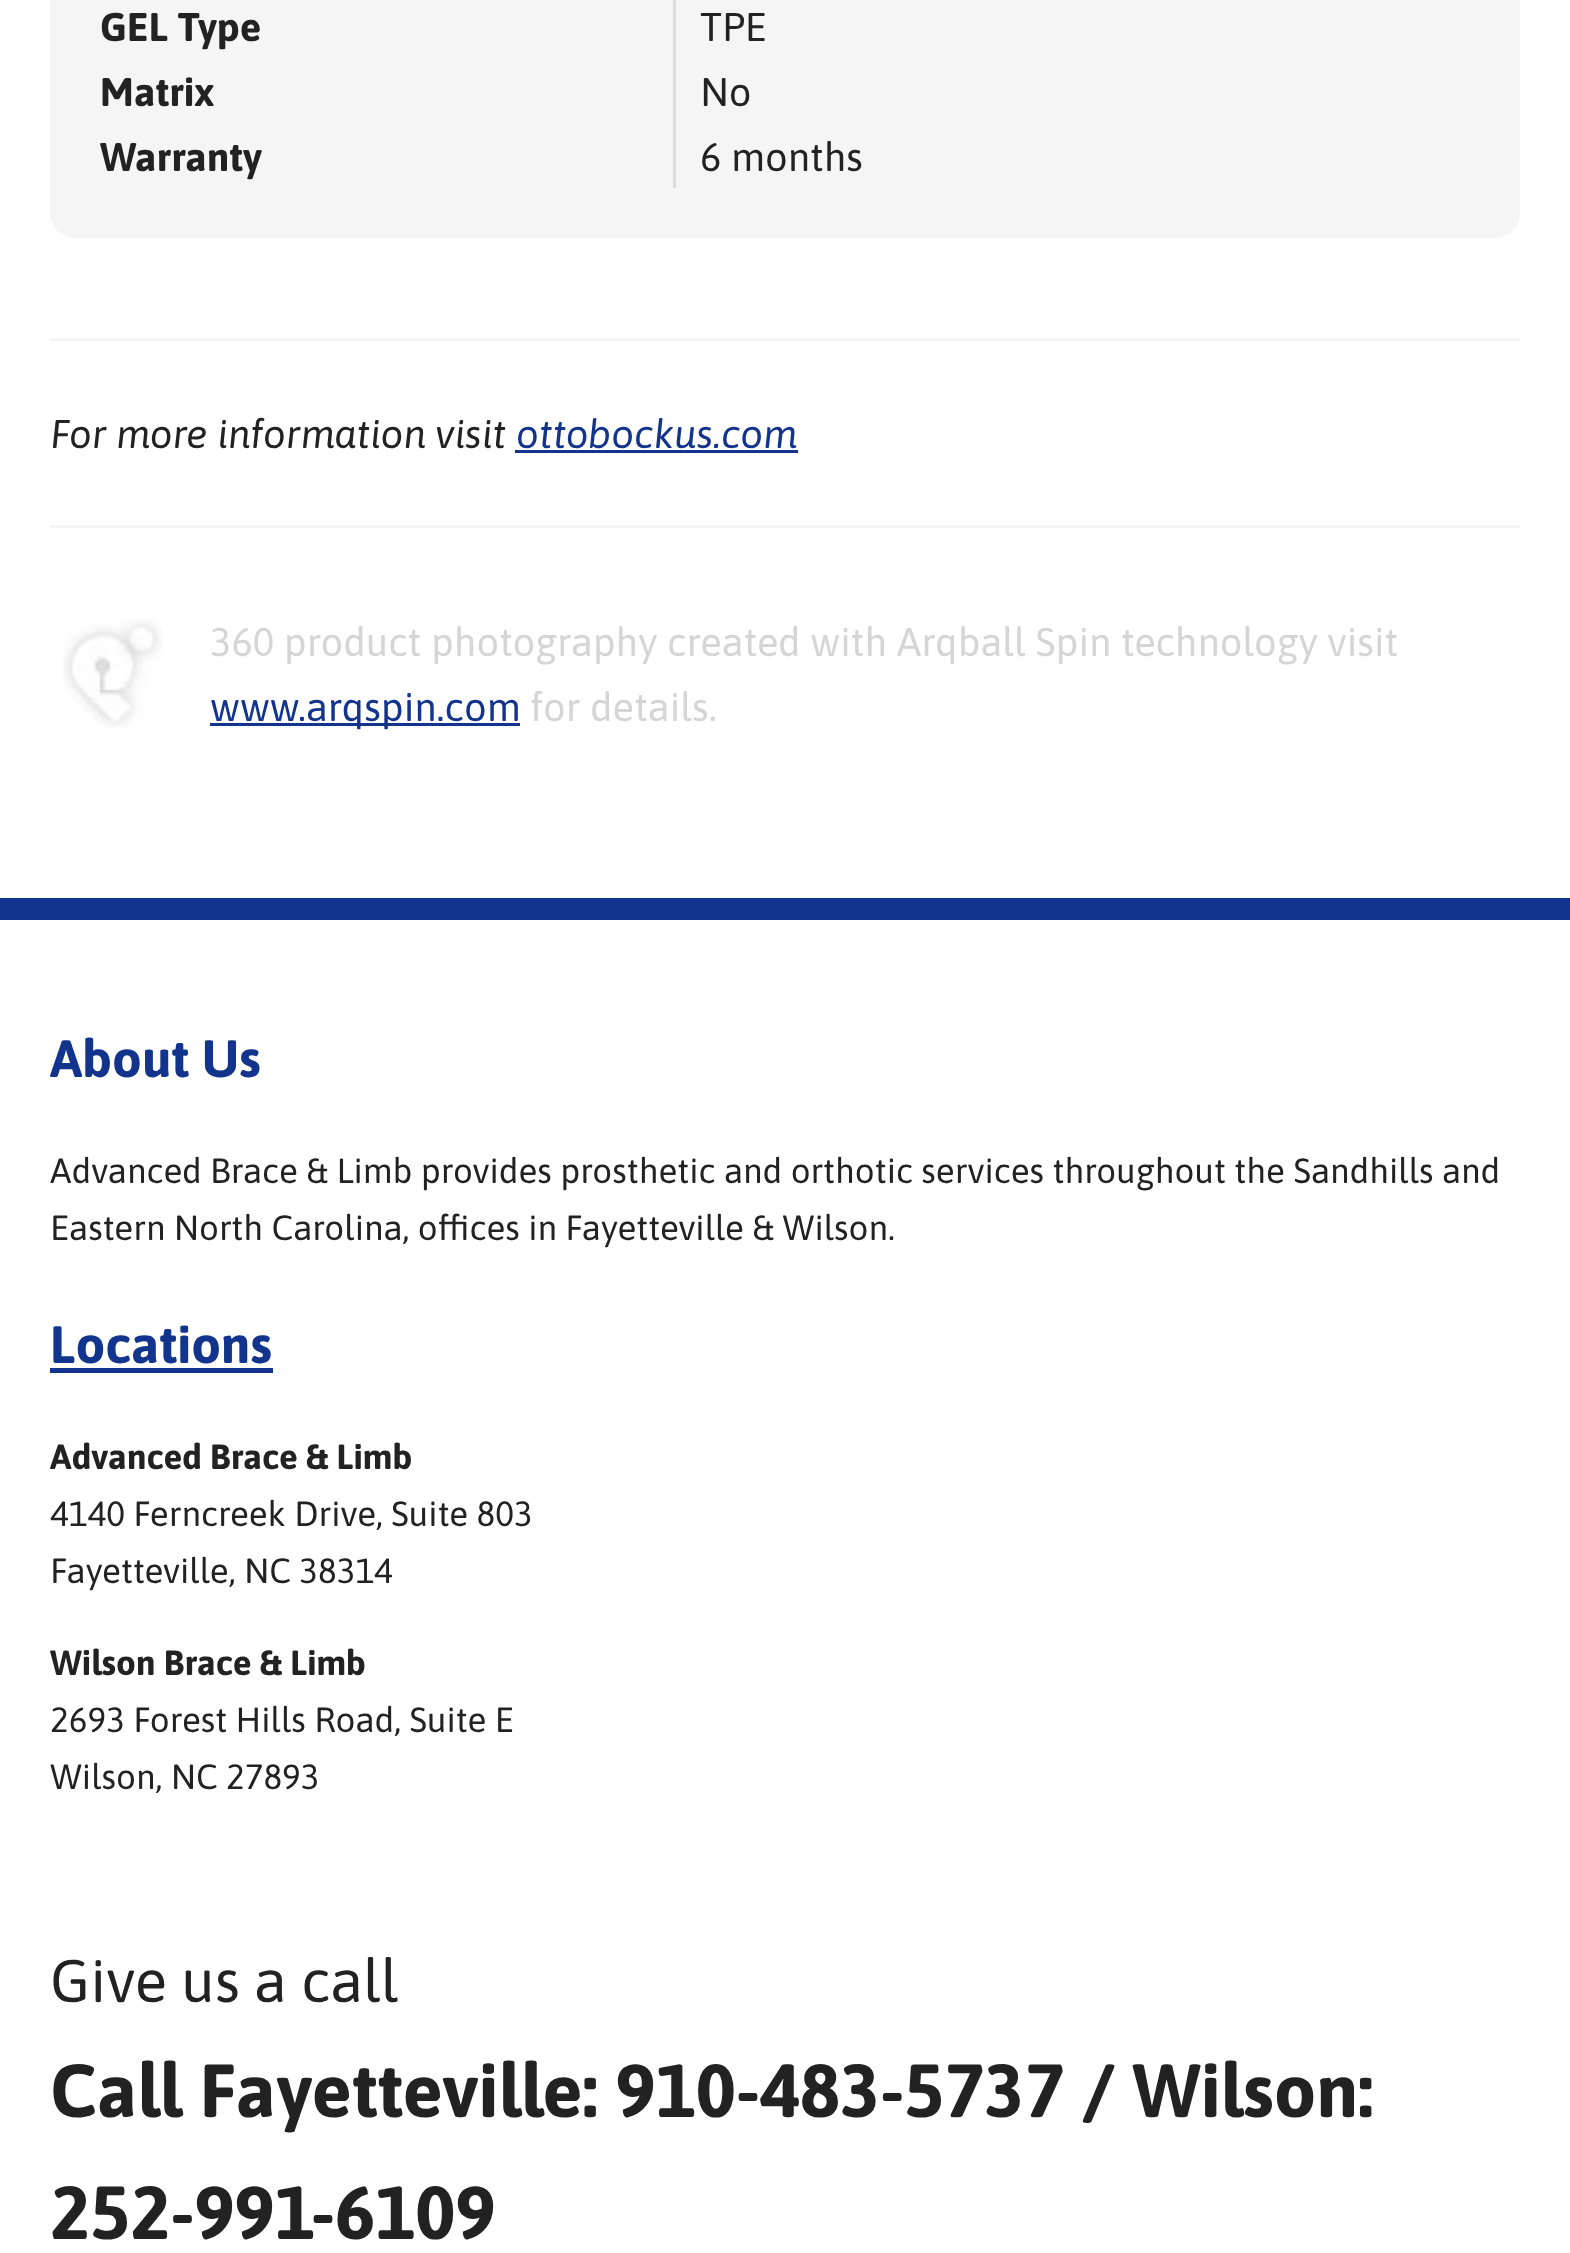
async function draw(canvas) {
	canvas.width = 1570;
	canvas.height = 2253;
	const c = canvas.getContext('2d');
	c.miterLimit = 4;
	c.fontKerning = 'normal';
	async function loadImage(src) {
		const img = new Image();
		img.src = src;
		await img.decode();
		return img;
	}

	c.fillStyle = '#fff';
	c.fillRect(0, 0, 1570, 2253);
	c.fillStyle = '#f5f5f5';
	c.beginPath();
	c.roundRect(50, -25, 1470, 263, 25);
	c.fill();
	c.fillStyle = '#dcdcdc';
	c.fillRect(673, 0, 3, 188);
	c.font = 'bold 40px Asap';
	c.fillStyle = '#222';
	c.fillText('GEL Type', 100, 41);
	c.font = '40px Asap';
	c.fillText('TPE', 700, 41);
	c.font = 'bold 40px Asap';
	c.fillText('Matrix', 100, 106);
	c.font = '40px Asap';
	c.fillText('No', 700, 106);
	c.font = 'bold 40px Asap';
	c.fillText('Warranty', 100, 171);
	c.font = '40px Asap';
	c.fillText('6 months', 700, 171);
	c.fillStyle = '#f5f5f5';
	c.fillRect(50, 338, 1470, 3);
	c.fillRect(50, 525, 1470, 3);
	c.font = 'italic 40px Asap';
	c.fillStyle = '#222';
	c.fillText('For more information visit', 50, 448);
	c.fillStyle = '#12348c';
	c.fillText('ottobockus.com', 516, 448);
	c.fillRect(515, 450, 283, 3);
	c.drawImage(await loadImage('img1.png'), 63, 619, 99, 110);
	c.font = '40px Asap';
	c.fillStyle = '#d5d5d5';
	c.fillText('360 product photography created with Arqball Spin technology visit', 210, 656);
	c.fillStyle = '#12348c';
	c.fillRect(210, 723, 310, 3);
	c.fillText('www.arqspin.com', 210, 721);
	c.fillStyle = '#d5d5d5';
	c.fillText('for details.', 530, 721);
	c.fillStyle = '#12348c';
	c.fillRect(0, 898, 1570, 22);
	c.font = 'bold 52.5px Asap';
	c.fillText('About Us', 50, 1077);
	c.font = '35px Asap';
	c.fillStyle = '#222';
	c.fillText('Advanced Brace & Limb provides prosthetic and orthotic services throughout the Sandhills and', 50, 1183);
	c.fillText('Eastern North Carolina, offices in Fayetteville & Wilson.', 50, 1240);
	c.font = 'bold 52.5px Asap';
	c.fillStyle = '#12348c';
	c.fillText('Locations', 50, 1363);
	c.fillRect(50, 1368, 223, 5);
	c.font = 'bold 35px Asap';
	c.fillStyle = '#222';
	c.fillText('Advanced Brace & Limb', 50, 1469);
	c.font = '35px Asap';
	c.fillText('4140 Ferncreek Drive, Suite 803', 50, 1526);
	c.fillText('Fayetteville, NC 38314', 50, 1583);
	c.font = 'bold 35px Asap';
	c.fillText('Wilson Brace & Limb', 50, 1675);
	c.font = '35px Asap';
	c.fillText('2693 Forest Hills Road, Suite E', 50, 1732);
	c.fillText('Wilson, NC 27893', 50, 1789);
	c.font = '60px Asap';
	c.fillText('Give us a call', 50, 2002);
	c.font = 'bold 75px Asap';
	c.fillText('Call Fayetteville: 910-483-5737 / Wilson:', 50, 2117);
	c.fillText('252-991-6109', 50, 2239);
}

draw(document.querySelector('canvas'));
